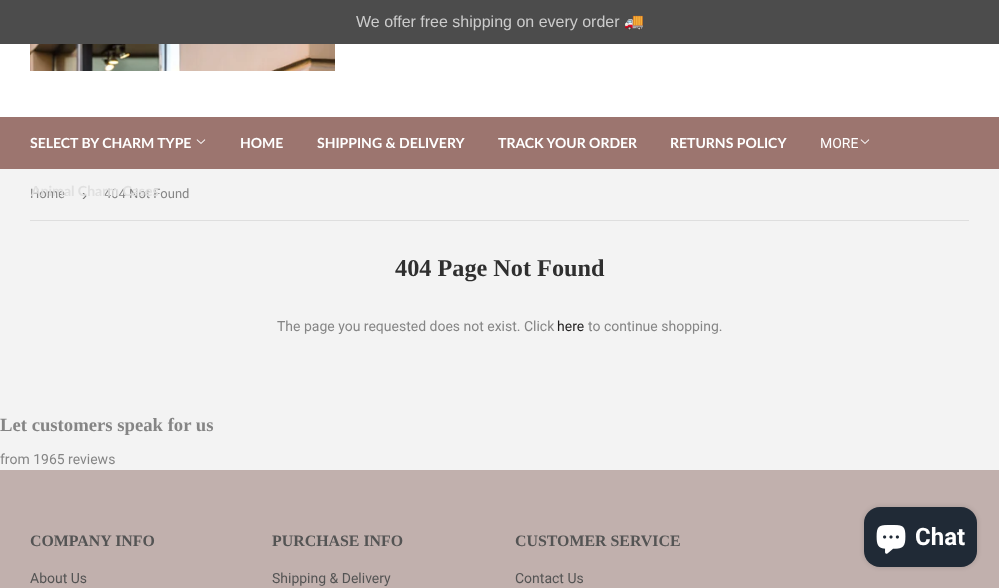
async function draw(canvas) {
	canvas.width = 999;
	canvas.height = 588;
	const c = canvas.getContext('2d');
	c.miterLimit = 4;
	c.fontKerning = 'normal';
	async function loadImage(src) {
		const img = new Image();
		img.src = src;
		await img.decode();
		return img;
	}

	c.fillStyle = '#f3f3f3';
	c.fillRect(0, 0, 999, 588);
	c.fillStyle = '#4c4c4c';
	c.fillRect(0, 0, 999, 44);
	c.font = '16px Liberation Sans';
	c.fillStyle = '#ccc';
	c.fillText('We offer free shipping on every order', 356, 27);
	c.font = '16px Noto Color Emoji';
	c.fillText('🚚', 624, 27);
	c.fillStyle = '#fff';
	c.fillRect(0, 44, 999, 73);
	c.drawImage(await loadImage('img1.png'), 30, 44, 305, 27);
	c.fillStyle = '#9c756f';
	c.fillRect(0, 117, 999, 52);
	c.font = 'bold 14px Lato';
	c.fillStyle = '#fff';
	c.fillText('SELECT BY CHARM TYPE', 30, 148);
	c.drawImage(await loadImage('img2.png'), 196, 139, 10, 5);
	c.font = '13px Roboto';
	c.fillStyle = '#858585';
	c.fillText('Home', 30, 198);
	c.font = '15px Liberation Sans';
	c.fillStyle = '#767676';
	c.fillText('›', 82, 200);
	c.font = '13px Roboto';
	c.fillStyle = '#858585';
	c.fillText('404 Not Found', 104, 198);
	c.font = 'bold 14px Lato';
	c.fillStyle = '#e0e0e0';
	c.fillText('Animal Charm Cases', 31, 196);
	c.fillStyle = '#fff';
	for (const [text, x, y] of [
		['HOME', 240, 148],
		['SHIPPING & DELIVERY', 317, 148],
		['TRACK YOUR ORDER', 498, 148],
		['RETURNS POLICY', 670, 148],
	]) {
		c.fillText(text, x, y);
	}
	c.font = '14px Roboto';
	c.fillText('MORE', 820, 148);
	c.drawImage(await loadImage('img2.png'), 860, 139, 10, 5);
	c.fillStyle = '#dedede';
	c.fillRect(30, 220, 939, 1);
	c.font = 'bold 24.25px Liberation Serif';
	c.fillStyle = '#2f2f2f';
	c.fillText('404 Page Not Found', 395, 276);
	c.font = '14px Roboto';
	c.fillStyle = '#858585';
	c.fillText('The page you requested does not exist. Click', 277, 331);
	c.fillStyle = '#1f1d1d';
	c.fillText('here', 557, 331);
	c.fillStyle = '#858585';
	c.fillText('to continue shopping.', 588, 331);
	c.font = 'bold 18.7px Liberation Serif';
	c.fillText('Let customers speak for us', 0, 431);
	c.font = '14px Roboto';
	c.fillText('from 1965 reviews', 0, 464);
	c.fillStyle = '#c1b0ad';
	c.fillRect(0, 470, 999, 118);
	c.font = 'bold 15.9px Liberation Serif';
	c.fillStyle = '#545454';
	c.fillText('COMPANY INFO', 30, 546);
	c.font = '14px Roboto';
	c.fillText('About Us', 30, 583);
	c.font = 'bold 15.9px Liberation Serif';
	c.fillText('PURCHASE INFO', 272, 546);
	c.font = '14px Roboto';
	c.fillText('Shipping & Delivery', 272, 583);
	c.font = 'bold 15.9px Liberation Serif';
	c.fillText('CUSTOMER SERVICE', 515, 546);
	c.font = '14px Roboto';
	c.fillText('Contact Us', 515, 583);
	c.fillStyle = '#00000026';
	c.filter = 'blur(2.5px)';
	c.beginPath();
	c.roundRect(864, 507, 113, 60, 16);
	c.fill();
	c.filter = 'none';
	c.fillStyle = '#202a36';
	c.beginPath();
	c.roundRect(864, 507, 113, 60, 16);
	c.fill();
	c.drawImage(await loadImage('img3.png'), 876, 525, 30, 29);
	c.font = 'bold 24px Roboto';
	c.fillStyle = '#fff';
	c.fillText('Chat', 915, 545);
}

draw(document.querySelector('canvas'));
